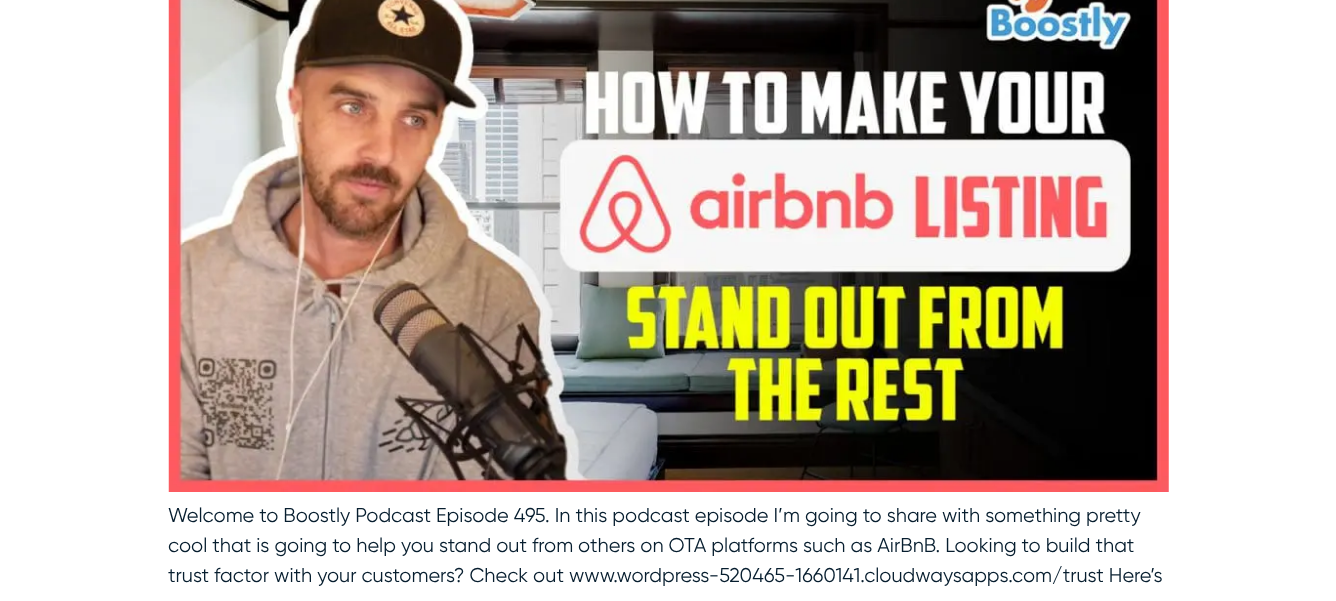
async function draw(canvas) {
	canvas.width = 1336;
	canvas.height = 601;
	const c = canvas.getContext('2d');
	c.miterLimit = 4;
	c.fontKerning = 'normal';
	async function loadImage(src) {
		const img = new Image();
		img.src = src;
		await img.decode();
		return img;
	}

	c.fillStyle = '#fff';
	c.fillRect(0, 0, 1336, 601);
	c.drawImage(await loadImage('img1.png'), 168, 0, 1001, 492);
	c.font = '20px Gilroy';
	c.fillStyle = '#071e2f';
	for (const [text, x, y] of [
		['Welcome to Boostly Podcast Episode 495. In this podcast episode I’m going to share with something pretty', 168, 522],
		['cool that is going to help you stand out from others on OTA platforms such as AirBnB. Looking to build that', 168, 552],
		['trust factor with your customers? Check out www.wordpress-520465-1660141.cloudwaysapps.com/trust Here’s', 168, 582],
	]) {
		c.fillText(text, x, y);
	}
}

draw(document.querySelector('canvas'));
